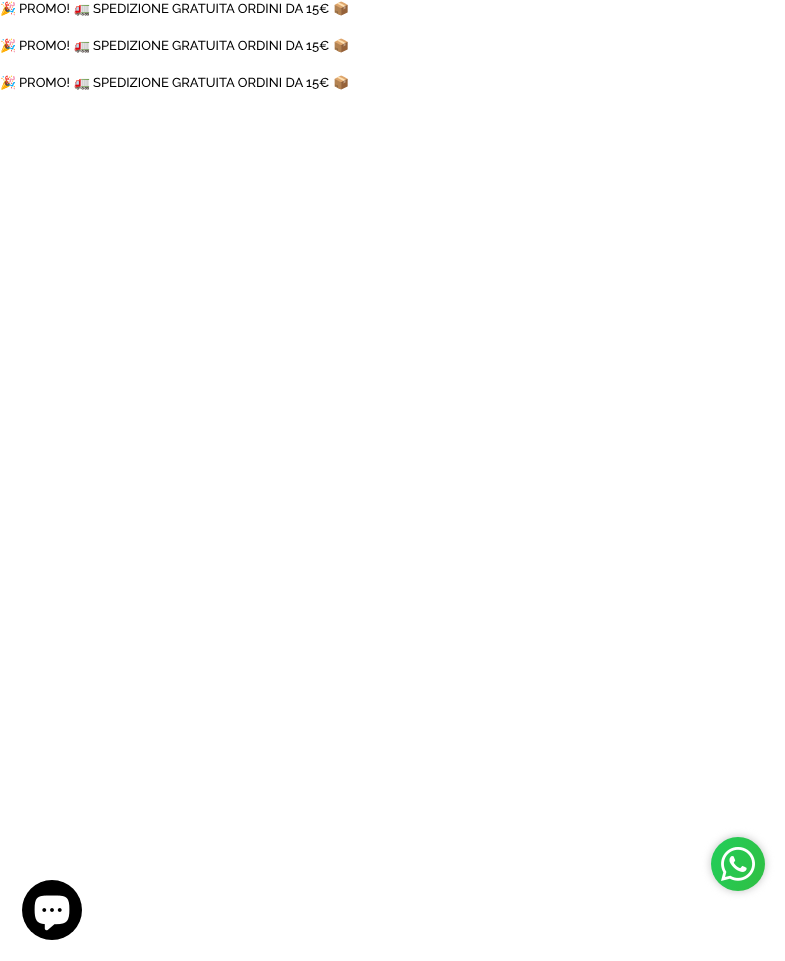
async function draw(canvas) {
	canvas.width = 785;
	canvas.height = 961;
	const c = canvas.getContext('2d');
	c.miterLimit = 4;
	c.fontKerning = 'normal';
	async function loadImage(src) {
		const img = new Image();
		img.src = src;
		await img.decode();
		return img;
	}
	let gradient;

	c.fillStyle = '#fff';
	c.fillRect(0, 0, 785, 961);
	c.font = '13px Noto Color Emoji';
	c.fillStyle = '#000';
	c.fillText('🎉', 0, 13);
	c.font = '500 13px Raleway';
	c.fillText('PROMO!', 19, 13);
	c.font = '13px Noto Color Emoji';
	c.fillText('🚛', 74, 13);
	c.font = '500 13px Raleway';
	c.fillText('SPEDIZIONE GRATUITA ORDINI DA 15€', 93, 13);
	c.font = '13px Noto Color Emoji';
	c.fillText('📦', 333, 13);
	c.fillText('🎉', 0, 50);
	c.font = '500 13px Raleway';
	c.fillText('PROMO!', 19, 50);
	c.font = '13px Noto Color Emoji';
	c.fillText('🚛', 74, 50);
	c.font = '500 13px Raleway';
	c.fillText('SPEDIZIONE GRATUITA ORDINI DA 15€', 93, 50);
	c.font = '13px Noto Color Emoji';
	c.fillText('📦', 333, 50);
	c.fillText('🎉', 0, 87);
	c.font = '500 13px Raleway';
	c.fillText('PROMO!', 19, 87);
	c.font = '13px Noto Color Emoji';
	c.fillText('🚛', 74, 87);
	c.font = '500 13px Raleway';
	c.fillText('SPEDIZIONE GRATUITA ORDINI DA 15€', 93, 87);
	c.font = '13px Noto Color Emoji';
	c.fillText('📦', 333, 87);
	c.fillStyle = '#c2c2c2';
	c.filter = 'blur(4px)';
	c.beginPath();
	c.roundRect(711, 837, 54, 54, 27);
	c.fill();
	c.filter = 'none';
	gradient = c.createLinearGradient(705, 851, 771, 877);
	gradient.addColorStop(0, '#22ce5a');
	gradient.addColorStop(0, '#22ce5a');
	gradient.addColorStop(1, '#30bf42');
	c.fillStyle = gradient;
	c.beginPath();
	c.arc(738, 864, 27, 0, 2 * Math.PI);
	c.fill();
	c.drawImage(await loadImage('img1.png'), 721, 847, 34, 34);
	c.fillStyle = '#000';
	c.beginPath();
	c.arc(52, 910, 30, 0, 2 * Math.PI);
	c.fill();
	c.drawImage(await loadImage('img2.png'), 34, 895, 36, 36);
}

draw(document.querySelector('canvas'));
